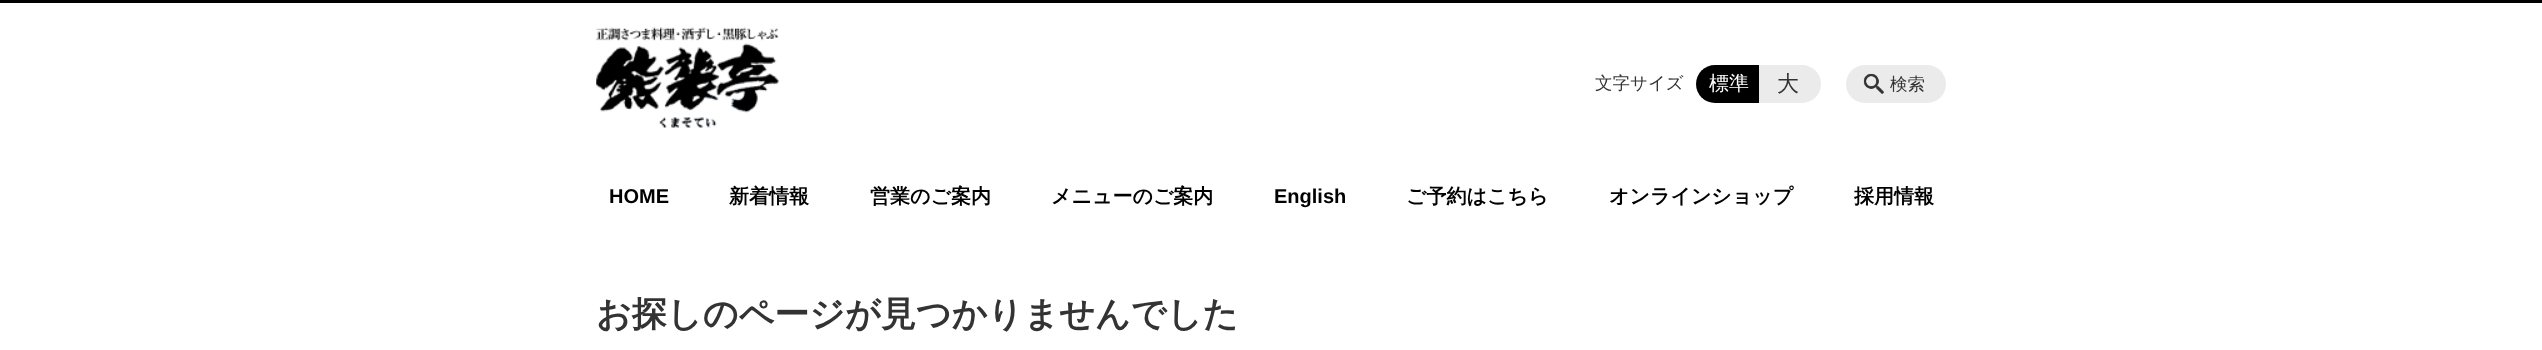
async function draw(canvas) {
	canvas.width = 2542;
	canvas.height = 350;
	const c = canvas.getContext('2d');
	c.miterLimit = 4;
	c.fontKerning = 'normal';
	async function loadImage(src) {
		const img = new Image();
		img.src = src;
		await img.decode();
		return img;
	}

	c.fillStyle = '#fff';
	c.fillRect(0, 0, 2542, 350);
	c.fillStyle = '#000';
	c.fillRect(0, 0, 2542, 3);
	c.drawImage(await loadImage('img1.png'), 596, 27, 183, 101);
	c.font = '500 17.5px WenQuanYi Zen Hei';
	c.fillStyle = '#333';
	c.fillText('文字サイズ', 1595, 89);
	c.fillStyle = '#000';
	c.beginPath();
	c.roundRect(1696, 65, 63, 38, [19, 0, 0, 19]);
	c.fill();
	c.font = '500 20px WenQuanYi Zen Hei';
	c.fillStyle = '#fff';
	c.fillText('標準', 1709, 90);
	c.fillStyle = '#ebebeb';
	c.beginPath();
	c.roundRect(1759, 65, 62, 38, [0, 19, 19, 0]);
	c.fill();
	c.font = '500 22px WenQuanYi Zen Hei';
	c.fillStyle = '#333';
	c.fillText('大', 1777, 91);
	c.fillStyle = '#ebebeb';
	c.beginPath();
	c.roundRect(1846, 65, 100, 38, 19);
	c.fill();
	c.drawImage(await loadImage('img2.png'), 1863, 73, 21, 21);
	c.font = '500 17.5px WenQuanYi Zen Hei';
	c.fillStyle = '#333';
	c.fillText('検索', 1890, 90);
	c.font = 'bold 20px Liberation Sans';
	c.fillStyle = '#000';
	c.fillText('HOME', 609, 203);
	c.font = 'bold 20px WenQuanYi Zen Hei';
	for (const [text, x, y] of [
		['新着情報', 729, 203],
		['営業のご案内', 870, 203],
		['メニューのご案内', 1051, 203],
	]) {
		c.fillText(text, x, y);
	}
	c.font = 'bold 20px Liberation Sans';
	c.fillText('English', 1274, 203);
	c.font = 'bold 20px WenQuanYi Zen Hei';
	for (const [text, x, y] of [
		['ご予約はこちら', 1406, 203],
		['オンラインショップ', 1609, 203],
		['採用情報', 1854, 203],
	]) {
		c.fillText(text, x, y);
	}
	c.font = 'bold 35px WenQuanYi Zen Hei';
	c.fillStyle = '#333';
	c.fillText('お探しのページが見つかりませんでした', 596, 326);
}

draw(document.querySelector('canvas'));
